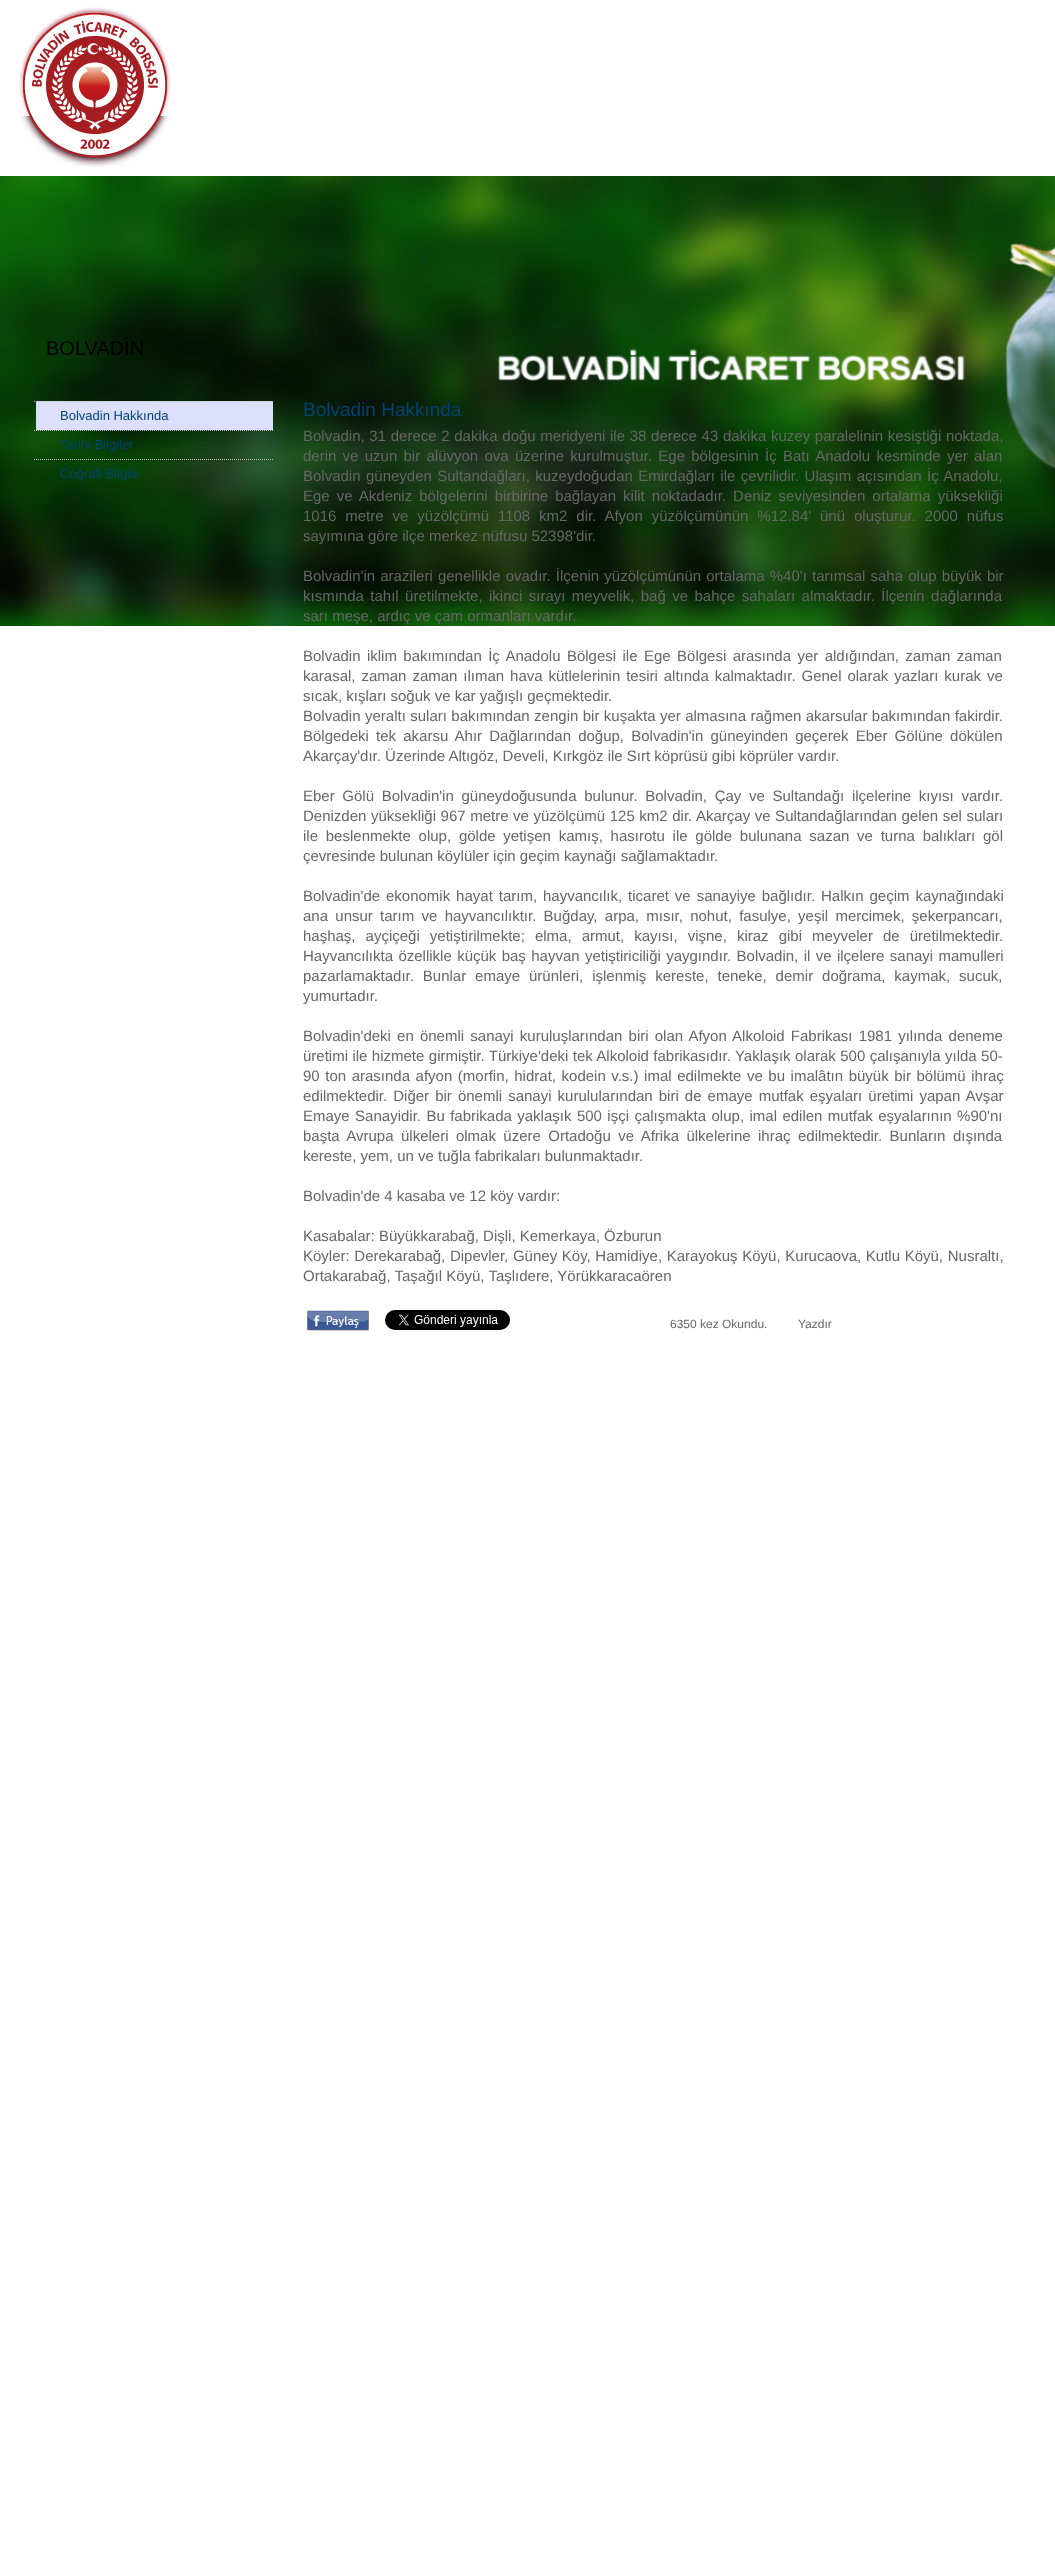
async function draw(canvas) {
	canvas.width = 1055;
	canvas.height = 2549;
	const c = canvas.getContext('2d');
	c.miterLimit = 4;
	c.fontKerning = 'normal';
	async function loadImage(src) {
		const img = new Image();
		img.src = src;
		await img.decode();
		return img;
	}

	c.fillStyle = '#fff';
	c.fillRect(0, 0, 1055, 2549);
	c.drawImage(await loadImage('img1.png'), 19, 7, 152, 160);
	c.drawImage(await loadImage('img2.png'), 0, 176, 1055, 450);
	c.font = '20px Liberation Sans';
	c.fillStyle = '#000';
	c.fillText('BOLVADİN', 46, 355);
	c.fillStyle = '#dde0fd';
	c.fillRect(36, 401, 237, 29);
	c.beginPath();
	c.moveTo(34, 401.5);
	c.lineTo(273, 401.5);
	c.strokeStyle = '#c0c0c0';
	c.setLineDash([1, 1]);
	c.stroke();
	c.font = '13px Liberation Sans';
	c.fillStyle = '#004375';
	c.fillText('Bolvadin Hakkında', 60, 420);
	c.beginPath();
	c.moveTo(34, 430.5);
	c.lineTo(273, 430.5);
	c.stroke();
	c.fillText('Tarihi Bilgiler', 60, 449);
	c.beginPath();
	c.moveTo(34, 459.5);
	c.lineTo(273, 459.5);
	c.stroke();
	c.fillText('Coğrafi Bilgisi', 60, 478);
	c.font = '19px Liberation Sans';
	c.fillText('Bolvadin Hakkında', 303, 416);
	c.wordSpacing = '0.5px';
	c.font = '15px Liberation Sans';
	c.fillStyle = '#666';
	c.fillText('Bolvadin, 31 derece 2 dakika doğu meridyeni ile 38 derece 43 dakika kuzey paralelinin kesiştiği noktada,', 303, 441);
	c.wordSpacing = '2.1px';
	c.fillText('derin ve uzun bir alüvyon ova üzerine kurulmuştur. Ege bölgesinin İç Batı Anadolu kesminde yer alan', 303, 461);
	c.wordSpacing = '1.25px';
	c.fillText('Bolvadin güneyden Sultandağları, kuzeydoğudan Emirdağları ile çevrilidir. Ulaşım açısından İç Anadolu,', 303, 481);
	c.wordSpacing = '2.9px';
	c.fillText('Ege ve Akdeniz bölgelerini birbirine bağlayan kilit noktadadır. Deniz seviyesinden ortalama yüksekliği', 303, 501);
	c.wordSpacing = '4.75px';
	c.fillText('1016 metre ve yüzölçümü 1108 km2 dir. Afyon yüzölçümünün %12.84\' ünü oluşturur. 2000 nüfus', 303, 521);
	c.wordSpacing = '0px';
	c.fillText('sayımına göre ilçe merkez nüfusu 52398\'dir.', 303, 541);
	c.wordSpacing = '1px';
	c.fillText('Bolvadin\'in arazileri genellikle ovadır. İlçenin yüzölçümünün ortalama %40\'ı tarımsal saha olup büyük bir', 303, 581);
	c.wordSpacing = '2.25px';
	c.fillText('kısmında tahıl üretilmekte, ikinci sırayı meyvelik, bağ ve bahçe sahaları almaktadır. İlçenin dağlarında', 303, 601);
	c.wordSpacing = '0px';
	c.fillText('sarı meşe, ardıç ve çam ormanları vardır.', 303, 621);
	c.wordSpacing = '2.25px';
	c.fillText('Bolvadin iklim bakımından İç Anadolu Bölgesi ile Ege Bölgesi arasında yer aldığından, zaman zaman', 303, 661);
	c.wordSpacing = '1.75px';
	c.fillText('karasal, zaman zaman ılıman hava kütlelerinin tesiri altında kalmaktadır. Genel olarak yazları kurak ve', 303, 681);
	c.wordSpacing = '0px';
	c.fillText('sıcak, kışları soğuk ve kar yağışlı geçmektedir.', 303, 701);
	c.wordSpacing = '0.25px';
	c.fillText('Bolvadin yeraltı suları bakımından zengin bir kuşakta yer almasına rağmen akarsular bakımından fakirdir.', 303, 721);
	c.wordSpacing = '3px';
	c.fillText('Bölgedeki tek akarsu Ahır Dağlarından doğup, Bolvadin\'in güneyinden geçerek Eber Gölüne dökülen', 303, 741);
	c.wordSpacing = '0px';
	c.fillText('Akarçay\'dır. Üzerinde Altıgöz, Develi, Kırkgöz ile Sırt köprüsü gibi köprüler vardır.', 303, 761);
	c.wordSpacing = '3.5px';
	c.fillText('Eber Gölü Bolvadin\'in güneydoğusunda bulunur. Bolvadin, Çay ve Sultandağı ilçelerine kıyısı vardır.', 303, 801);
	c.wordSpacing = '0.4px';
	c.fillText('Denizden yüksekliği 967 metre ve yüzölçümü 125 km2 dir. Akarçay ve Sultandağlarından gelen sel suları', 303, 821);
	c.wordSpacing = '3.6px';
	c.fillText('ile beslenmekte olup, gölde yetişen kamış, hasırotu ile gölde bulunana sazan ve turna balıkları göl', 303, 841);
	c.wordSpacing = '0px';
	c.fillText('çevresinde bulunan köylüler için geçim kaynağı sağlamaktadır.', 303, 861);
	c.wordSpacing = '1.75px';
	c.fillText('Bolvadin\'de ekonomik hayat tarım, hayvancılık, ticaret ve sanayiye bağlıdır. Halkın geçim kaynağındaki', 303, 901);
	c.wordSpacing = '3.1px';
	c.fillText('ana unsur tarım ve hayvancılıktır. Buğday, arpa, mısır, nohut, fasulye, yeşil mercimek, şekerpancarı,', 303, 921);
	c.wordSpacing = '5.9px';
	c.fillText('haşhaş, ayçiçeği yetiştirilmekte; elma, armut, kayısı, vişne, kiraz gibi meyveler de üretilmektedir.', 303, 941);
	c.wordSpacing = '1.2px';
	c.fillText('Hayvancılıkta özellikle küçük baş hayvan yetiştiriciliği yaygındır. Bolvadin, il ve ilçelere sanayi mamulleri', 303, 961);
	c.wordSpacing = '4.75px';
	c.fillText('pazarlamaktadır. Bunlar emaye ürünleri, işlenmiş kereste, teneke, demir doğrama, kaymak, sucuk,', 303, 981);
	c.wordSpacing = '0px';
	c.fillText('yumurtadır.', 303, 1001);
	c.wordSpacing = '2px';
	c.fillText('Bolvadin\'deki en önemli sanayi kuruluşlarından biri olan Afyon Alkoloid Fabrikası 1981 yılında deneme', 303, 1041);
	c.wordSpacing = '0.25px';
	c.fillText('üretimi ile hizmete girmiştir. Türkiye\'deki tek Alkoloid fabrikasıdır. Yaklaşık olarak 500 çalışanıyla yılda 50-', 303, 1061);
	c.wordSpacing = '1.4px';
	c.fillText('90 ton arasında afyon (morfin, hidrat, kodein v.s.) imal edilmekte ve bu imalâtın büyük bir bölümü ihraç', 303, 1081);
	c.wordSpacing = '1.9px';
	c.fillText('edilmektedir. Diğer bir önemli sanayi kurulularından biri de emaye mutfak eşyaları üretimi yapan Avşar', 303, 1101);
	c.wordSpacing = '1.25px';
	c.fillText('Emaye Sanayidir. Bu fabrikada yaklaşık 500 işçi çalışmakta olup, imal edilen mutfak eşyalarının %90\'nı', 303, 1121);
	c.wordSpacing = '3.25px';
	c.fillText('başta Avrupa ülkeleri olmak üzere Ortadoğu ve Afrika ülkelerine ihraç edilmektedir. Bunların dışında', 303, 1141);
	c.wordSpacing = '0px';
	for (const [text, x, y] of [
		['kereste, yem, un ve tuğla fabrikaları bulunmaktadır.', 303, 1161],
		['Bolvadin\'de 4 kasaba ve 12 köy vardır:', 303, 1201],
		['Kasabalar: Büyükkarabağ, Dişli, Kemerkaya, Özburun', 303, 1241],
	]) {
		c.fillText(text, x, y);
	}
	c.wordSpacing = '0.5px';
	c.fillText('Köyler: Derekarabağ, Dipevler, Güney Köy, Hamidiye, Karayokuş Köyü, Kurucaova, Kutlu Köyü, Nusraltı,', 303, 1261);
	c.wordSpacing = '0px';
	c.fillText('Ortakarabağ, Taşağıl Köyü, Taşlıdere, Yörükkaracaören', 303, 1281);
	c.drawImage(await loadImage('img3.png'), 307, 1310, 62, 21);
	c.drawImage(await loadImage('img4.png'), 385, 1310, 125, 20);
	c.font = '12px Liberation Sans';
	c.fillText('6350 kez Okundu.', 670, 1328);
	c.fillText('Yazdır', 798, 1328);
}

draw(document.querySelector('canvas'));
